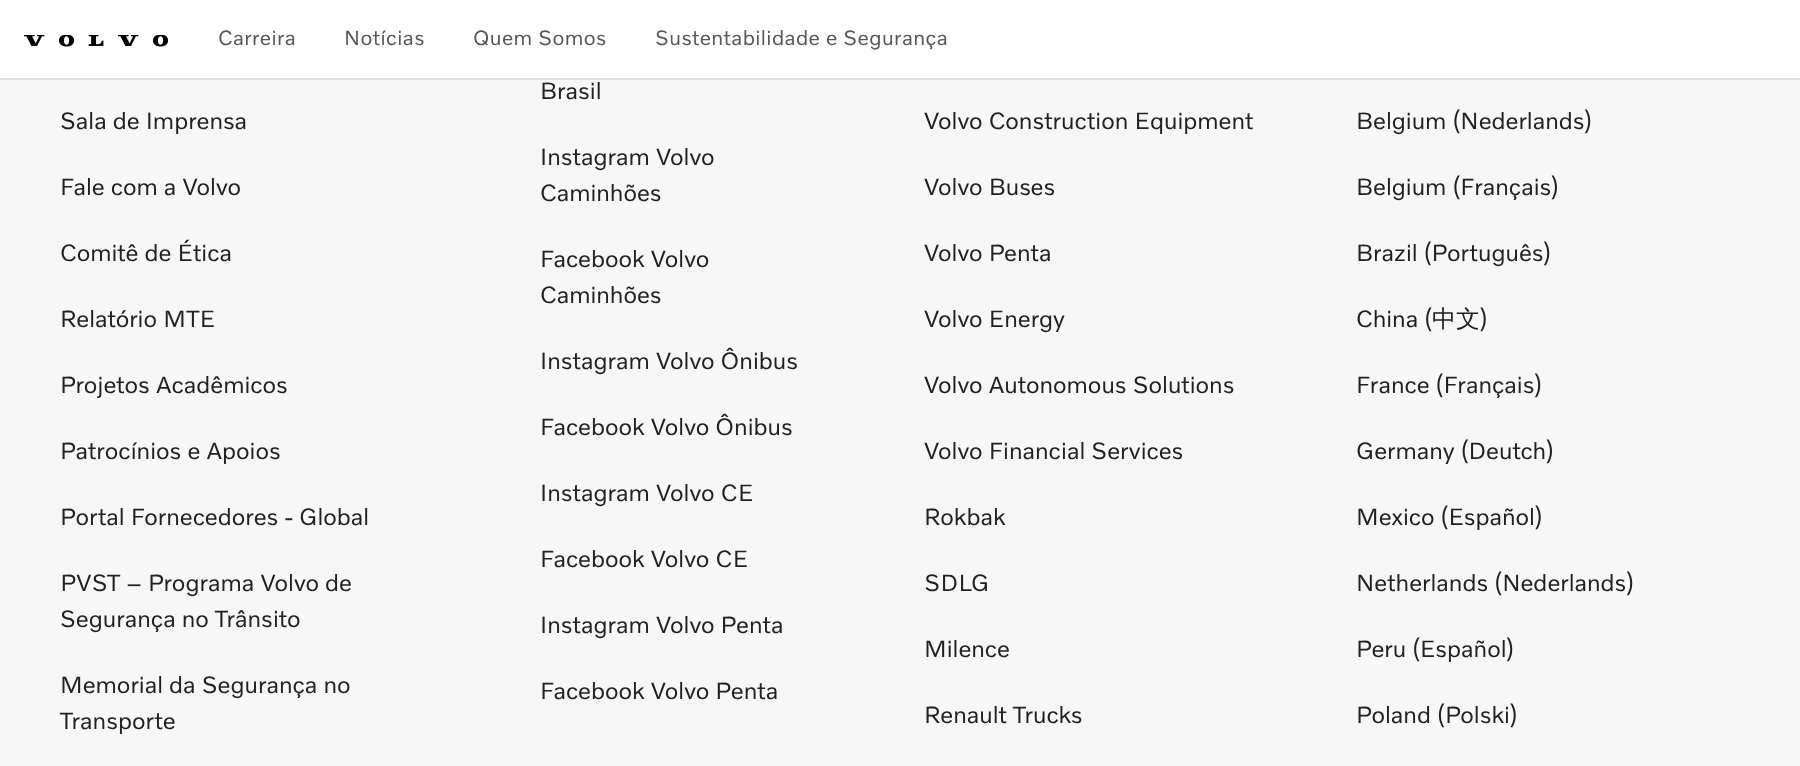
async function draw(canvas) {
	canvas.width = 1800;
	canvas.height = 766;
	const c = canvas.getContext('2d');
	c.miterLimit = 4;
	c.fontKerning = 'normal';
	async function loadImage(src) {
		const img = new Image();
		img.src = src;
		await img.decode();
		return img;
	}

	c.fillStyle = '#f7f7f7';
	c.fillRect(0, 0, 1800, 766);
	c.fillStyle = '#fff';
	c.fillRect(0, 0, 1800, 78);
	c.fillStyle = '#e1e1e1';
	c.fillRect(0, 78, 1800, 2);
	c.drawImage(await loadImage('img1.png'), 24, 35, 145, 12);
	c.letterSpacing = '0.4px';
	c.font = '21px "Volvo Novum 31"';
	c.fillStyle = '#575757';
	for (const [text, x, y] of [
		['Carreira', 218, 45],
		['Notícias', 344, 45],
		['Quem Somos', 473, 45],
		['Sustentabilidade e Segurança', 655, 45],
	]) {
		c.fillText(text, x, y);
	}
	c.letterSpacing = '0px';
	c.font = '24px "Volvo Novum 31"';
	c.fillStyle = '#212121';
	for (const [text, x, y] of [
		['Sala de Imprensa', 60, 129],
		['Fale com a Volvo', 60, 195],
		['Comitê de Ética', 60, 261],
		['Relatório MTE', 60, 327],
		['Projetos Acadêmicos', 60, 393],
		['Patrocínios e Apoios', 60, 459],
		['Portal Fornecedores - Global', 60, 525],
		['PVST – Programa Volvo de', 60, 591],
		['Segurança no Trânsito', 60, 627],
		['Memorial da Segurança no', 60, 693],
		['Transporte', 60, 729],
		['Brasil', 540, 99],
		['Instagram Volvo', 540, 165],
		['Caminhões', 540, 201],
		['Facebook Volvo', 540, 267],
		['Caminhões', 540, 303],
		['Instagram Volvo Ônibus', 540, 369],
		['Facebook Volvo Ônibus', 540, 435],
		['Instagram Volvo CE', 540, 501],
		['Facebook Volvo CE', 540, 567],
		['Instagram Volvo Penta', 540, 633],
		['Facebook Volvo Penta', 540, 699],
		['Volvo Construction Equipment', 924, 129],
		['Volvo Buses', 924, 195],
		['Volvo Penta', 924, 261],
		['Volvo Energy', 924, 327],
		['Volvo Autonomous Solutions', 924, 393],
		['Volvo Financial Services', 924, 459],
		['Rokbak', 924, 525],
		['SDLG', 924, 591],
		['Milence', 924, 657],
		['Renault Trucks', 924, 723],
		['Belgium (Nederlands)', 1356, 129],
		['Belgium (Français)', 1356, 195],
		['Brazil (Português)', 1356, 261],
		['China (', 1356, 327],
	]) {
		c.fillText(text, x, y);
	}
	c.font = '500 24px WenQuanYi Zen Hei';
	c.fillText('中文', 1432, 327);
	c.font = '24px "Volvo Novum 31"';
	for (const [text, x, y] of [
		[')', 1480, 327],
		['France (Français)', 1356, 393],
		['Germany (Deutch)', 1356, 459],
		['Mexico (Español)', 1356, 525],
		['Netherlands (Nederlands)', 1356, 591],
		['Peru (Español)', 1356, 657],
		['Poland (Polski)', 1356, 723],
	]) {
		c.fillText(text, x, y);
	}
}

draw(document.querySelector('canvas'));
